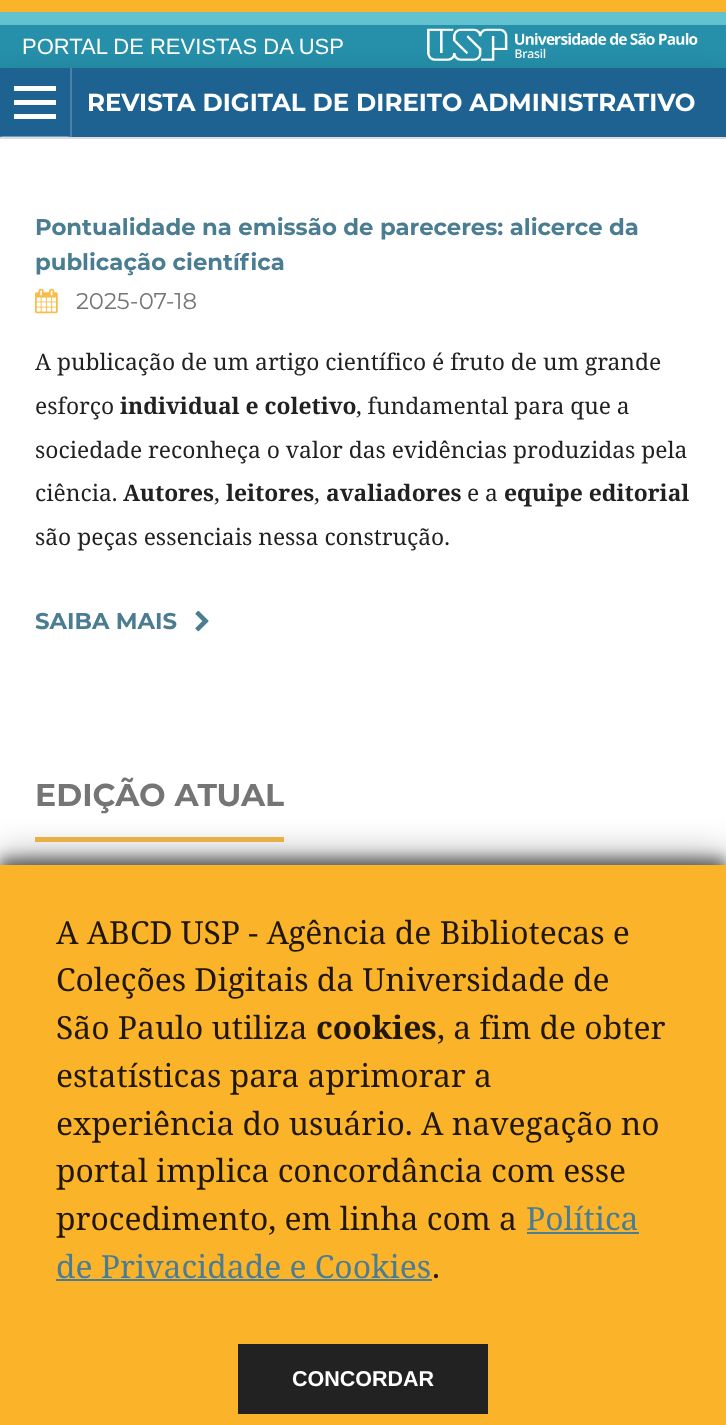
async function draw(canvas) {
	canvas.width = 726;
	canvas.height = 1425;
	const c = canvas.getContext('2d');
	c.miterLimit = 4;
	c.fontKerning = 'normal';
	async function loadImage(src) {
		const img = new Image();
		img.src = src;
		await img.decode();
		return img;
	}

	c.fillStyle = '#fbb42a';
	c.fillRect(0, 0, 726, 1425);
	c.fillStyle = '#62c2cf';
	c.fillRect(0, 12, 726, 13);
	c.fillStyle = '#268fa9';
	c.fillRect(0, 25, 726, 43);
	c.fillStyle = '#0000001a';
	c.filter = 'blur(9px)';
	c.beginPath();
	c.rect(0, 68, 726, 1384);
	c.fill();
	c.filter = 'none';
	c.font = '22px Liberation Sans';
	c.fillStyle = '#fff';
	c.fillText('PORTAL DE REVISTAS DA USP', 22, 54);
	c.drawImage(await loadImage('img1.png'), 427, 28, 271, 33);
	for (const [x, y, w, h, color] of [
		[0, 139, 726, 726, '#fff'],
		[0, 68, 726, 69, '#1e6292'],
		[0, 137, 726, 2, '#ddd'],
	]) {
		c.fillStyle = color;
		c.fillRect(x, y, w, h);
	}
	c.fillStyle = '#4b81a8';
	c.beginPath();
	c.moveTo(-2, 68);
	c.lineTo(-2, 137);
	c.lineTo(68, 137);
	c.lineTo(68, 136);
	c.lineTo(0, 136);
	c.lineTo(0, 68);
	c.lineTo(68, 68);
	c.closePath();
	c.fill();
	c.fillStyle = '#ffffff33';
	c.beginPath();
	c.moveTo(2, 68);
	c.lineTo(70, 68);
	c.lineTo(70, 136);
	c.lineTo(2, 136);
	c.lineTo(2, 137);
	c.lineTo(72, 137);
	c.lineTo(72, 68);
	c.closePath();
	c.fill();
	for (const [x, y, w, h, color] of [
		[14, 114, 42, 5, '#fff'],
		[14, 86, 42, 5, '#fff'],
		[14, 100, 42, 5, '#fff'],
	]) {
		c.fillStyle = color;
		c.fillRect(x, y, w, h);
	}
	c.font = 'bold 24.5px Montserrat';
	c.fillText('REVISTA DIGITAL DE DIREITO ADMINISTRATIVO', 87, 111);
	c.font = 'bold 22.8px Montserrat';
	c.fillStyle = '#4b7d92';
	c.fillText('Pontualidade na emissão de pareceres: alicerce da', 35, 235);
	c.fillText('publicação científica', 35, 270);
	c.drawImage(await loadImage('img2.png'), 35, 288, 23, 26);
	c.font = '22.8px Montserrat';
	c.fillStyle = '#757575';
	c.fillText('2025-07-18', 76, 309);
	c.font = '22.8px Noto Serif';
	c.fillStyle = '#212121';
	c.fillText('A publicação de um artigo científico é fruto de um grande', 35, 370);
	c.fillText('esforço', 35, 414);
	c.font = 'bold 22.8px Noto Serif';
	c.fillText('individual e coletivo', 120, 414);
	c.font = '22.8px Noto Serif';
	for (const [text, x, y] of [
		[', fundamental para que a', 356, 414],
		['sociedade reconheça o valor das evidências produzidas pela', 35, 458],
		['ciência.', 35, 501],
	]) {
		c.fillText(text, x, y);
	}
	c.font = 'bold 22.8px Noto Serif';
	c.fillText('Autores', 123, 501);
	c.font = '22.8px Noto Serif';
	c.fillText(',', 214, 501);
	c.font = 'bold 22.8px Noto Serif';
	c.fillText('leitores', 226, 501);
	c.font = '22.8px Noto Serif';
	c.fillText(',', 314, 501);
	c.font = 'bold 22.8px Noto Serif';
	c.fillText('avaliadores', 326, 501);
	c.font = '22.8px Noto Serif';
	c.fillText('e a', 467, 501);
	c.font = 'bold 22.8px Noto Serif';
	c.fillText('equipe editorial', 504, 501);
	c.font = '22.8px Noto Serif';
	c.fillText('são peças essenciais nessa construção.', 35, 545);
	c.font = 'bold 22.8px Montserrat';
	c.fillStyle = '#4b7d92';
	c.fillText('SAIBA MAIS', 35, 629);
	c.drawImage(await loadImage('img3.png'), 195, 610, 14, 22);
	c.fillStyle = '#f7bc4a';
	c.fillRect(35, 837, 249, 5);
	c.font = 'bold 31.5px Montserrat';
	c.fillStyle = '#757575';
	c.fillText('EDIÇÃO ATUAL', 35, 806);
	c.fillStyle = '#0000004d';
	c.filter = 'blur(17.5px)';
	c.beginPath();
	c.rect(0, 854, 726, 562);
	c.fill();
	c.filter = 'none';
	c.fillStyle = '#00000080';
	c.filter = 'blur(7px)';
	c.beginPath();
	c.rect(0, 858, 726, 561);
	c.fill();
	c.filter = 'none';
	c.fillStyle = '#fbb42a';
	c.fillRect(0, 865, 726, 560);
	c.font = '31.8px Noto Serif';
	c.fillStyle = '#211705';
	for (const [text, x, y] of [
		['A ABCD USP - Agência de Bibliotecas e', 56, 944],
		['Coleções Digitais da Universidade de', 56, 991],
		['São Paulo utiliza', 56, 1039],
	]) {
		c.fillText(text, x, y);
	}
	c.font = 'bold 31.8px Noto Serif';
	c.fillText('cookies', 316, 1039);
	c.font = '31.8px Noto Serif';
	for (const [text, x, y] of [
		[', a fim de obter', 437, 1039],
		['estatísticas para aprimorar a', 56, 1087],
		['experiência do usuário. A navegação no', 56, 1135],
		['portal implica concordância com esse', 56, 1182],
		['procedimento, em linha com a', 56, 1230],
	]) {
		c.fillText(text, x, y);
	}
	c.fillStyle = '#4b7d92';
	c.fillText('Política', 526, 1230);
	c.fillRect(527, 1232, 112, 2);
	c.fillText('de Privacidade e Cookies', 56, 1278);
	c.fillRect(56, 1279, 376, 2);
	c.fillStyle = '#211705';
	c.fillText('.', 432, 1278);
	c.fillStyle = '#222';
	c.fillRect(238, 1344, 250, 70);
	c.font = 'bold 21.5px Liberation Sans';
	c.fillStyle = '#fff';
	c.fillText('CONCORDAR', 292, 1386);
}

draw(document.querySelector('canvas'));
